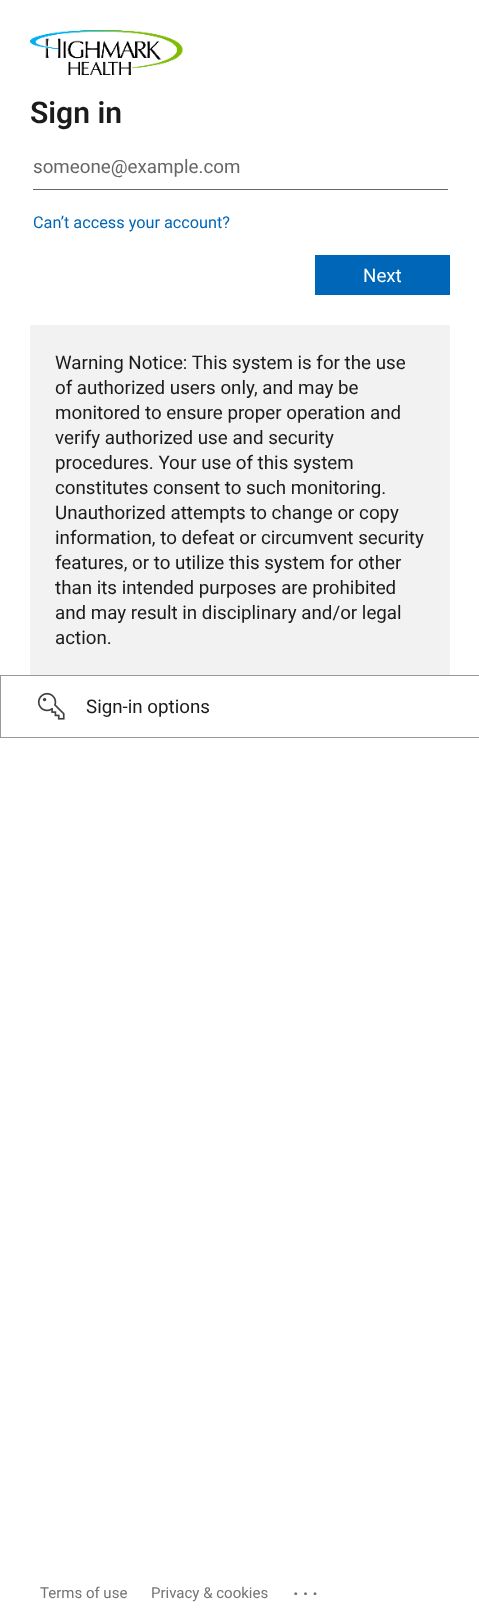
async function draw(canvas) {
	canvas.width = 479;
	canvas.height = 1609;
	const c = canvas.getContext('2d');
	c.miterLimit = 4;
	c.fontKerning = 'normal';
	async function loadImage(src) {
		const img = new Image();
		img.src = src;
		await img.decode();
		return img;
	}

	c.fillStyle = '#fff';
	c.fillRect(0, 0, 479, 1609);
	c.drawImage(await loadImage('img1.png'), 30, 30, 153, 45);
	c.font = '600 30px Roboto';
	c.fillStyle = '#1b1b1b';
	c.fillText('Sign in', 30, 123);
	c.fillStyle = '#666';
	c.fillRect(33, 189, 415, 1);
	c.font = '18.75px Roboto';
	c.fillText('someone@example.com', 33, 173);
	c.font = '16.25px Roboto';
	c.fillStyle = '#0067b8';
	c.fillText('Can’t access your account?', 33, 228);
	c.fillRect(315, 255, 135, 40);
	c.font = '18.75px Roboto';
	c.fillStyle = '#fff';
	c.fillText('Next', 363, 282);
	c.fillStyle = '#f2f2f2';
	c.fillRect(30, 325, 420, 350);
	c.fillStyle = '#1b1b1b';
	for (const [text, x, y] of [
		['Warning Notice: This system is for the use', 55, 369],
		['of authorized users only, and may be', 55, 394],
		['monitored to ensure proper operation and', 55, 419],
		['verify authorized use and security', 55, 444],
		['procedures. Your use of this system', 55, 469],
		['constitutes consent to such monitoring.', 55, 494],
		['Unauthorized attempts to change or copy', 55, 519],
		['information, to defeat or circumvent security', 55, 544],
		['features, or to utilize this system for other', 55, 569],
		['than its intended purposes are prohibited', 55, 594],
		['and may result in disciplinary and/or legal', 55, 619],
		['action.', 55, 644],
	]) {
		c.fillText(text, x, y);
	}
	c.strokeStyle = '#999';
	c.strokeRect(0.5, 675.5, 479, 62);
	c.drawImage(await loadImage('img2.png'), 37, 692, 28, 28);
	c.fillText('Sign-in options', 86, 713);
	c.font = '15px Roboto';
	c.fillStyle = '#747474';
	c.fillText('Terms of use', 40, 1598);
	c.fillText('Privacy & cookies', 151, 1598);
	c.letterSpacing = '4px';
	c.font = '600 20px Roboto';
	c.fillText('...', 293, 1595);
}

draw(document.querySelector('canvas'));
